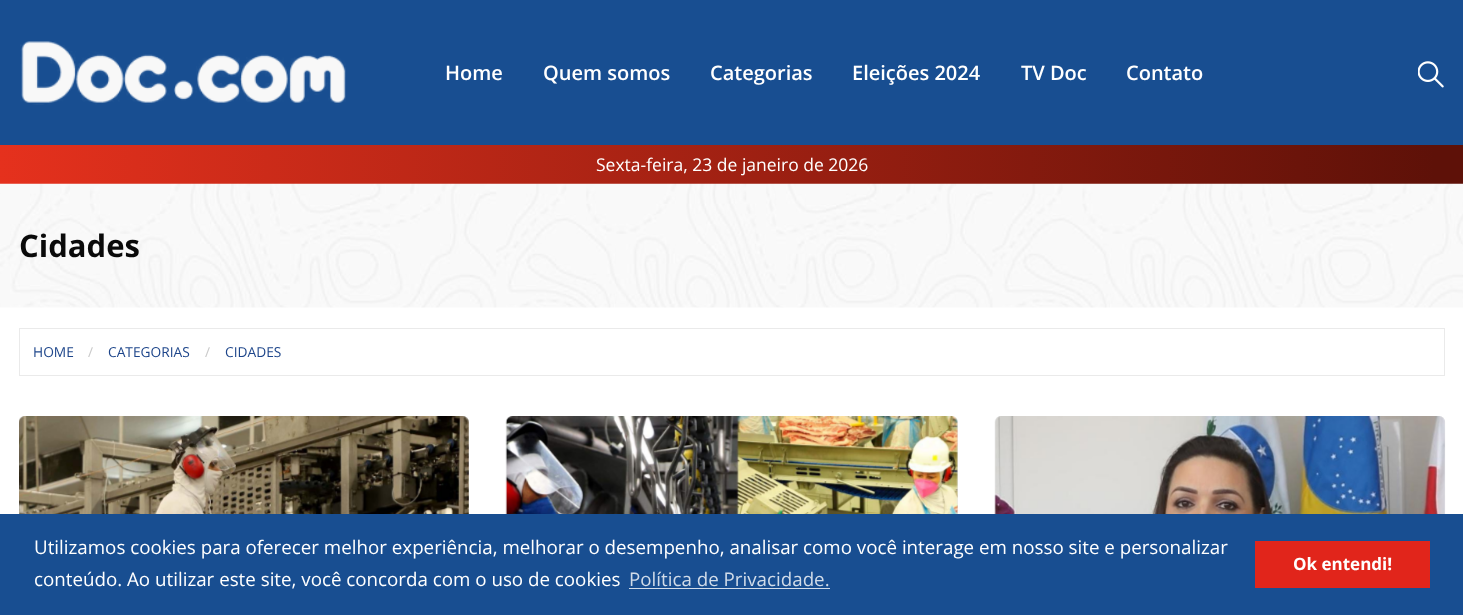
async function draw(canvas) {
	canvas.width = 1463;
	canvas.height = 615;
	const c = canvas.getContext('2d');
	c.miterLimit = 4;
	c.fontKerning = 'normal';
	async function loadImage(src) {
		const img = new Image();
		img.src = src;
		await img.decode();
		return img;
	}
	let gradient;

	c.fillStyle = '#fff';
	c.fillRect(0, 0, 1463, 615);
	c.fillStyle = '#184e91';
	c.fillRect(0, 0, 1463, 145);
	c.drawImage(await loadImage('img1.png'), 20, 41, 326, 64);
	c.font = '600 20px Open Sans';
	c.fillStyle = '#fff';
	for (const [text, x, y] of [
		['Home', 445, 80],
		['Quem somos', 543, 80],
		['Categorias', 710, 80],
		['Eleições 2024', 852, 80],
		['TV Doc', 1021, 80],
		['Contato', 1126, 80],
	]) {
		c.fillText(text, x, y);
	}
	c.drawImage(await loadImage('img2.png'), 1418, 61, 26, 27);
	gradient = c.createLinearGradient(0, 164, 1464, 164);
	gradient.addColorStop(0, '#e5311d');
	gradient.addColorStop(0.98, '#5e1108');
	c.fillStyle = gradient;
	c.fillRect(0, 145, 1463, 39);
	c.font = '17.5px Open Sans';
	c.fillStyle = '#fff';
	c.fillText('Sexta-feira, 23 de janeiro de 2026', 596, 171);
	c.drawImage(await loadImage('img3.png'), 0, 183, 1463, 125);
	c.font = 'bold 31px Open Sans';
	c.fillStyle = '#0a0a0a';
	c.fillText('Cidades', 19, 257);
	c.strokeStyle = '#eaeaea';
	c.strokeRect(19.5, 328.5, 1425, 47);
	c.font = '13.75px Open Sans';
	c.fillStyle = '#1d458a';
	c.fillText('HOME', 33, 357);
	c.fillStyle = '#cacaca';
	c.fillText('/', 88, 357);
	c.fillStyle = '#1d458a';
	c.fillText('CATEGORIAS', 108, 357);
	c.fillStyle = '#cacaca';
	c.fillText('/', 205, 357);
	c.fillStyle = '#1d458a';
	c.fillText('CIDADES', 225, 357);
	c.fillStyle = '#eaeaea';
	c.beginPath();
	c.roundRect(19, 416, 450, 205, 6);
	c.fill();
	c.drawImage(await loadImage('img4.png'), 19, 416, 450, 98);
	c.beginPath();
	c.roundRect(506, 416, 452, 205, 6);
	c.fill();
	c.drawImage(await loadImage('img5.png'), 505, 416, 453, 98);
	c.beginPath();
	c.roundRect(995, 416, 450, 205, 6);
	c.fill();
	c.drawImage(await loadImage('img6.png'), 994, 416, 452, 98);
	c.fillStyle = '#184e91';
	c.fillRect(0, 514, 1463, 101);
	c.font = '18.75px Open Sans';
	c.fillStyle = '#fff';
	c.fillText('Utilizamos cookies para oferecer melhor experiência, melhorar o desempenho, analisar como você interage em nosso site e personalizar', 34, 554);
	c.fillText('conteúdo. Ao utilizar este site, você concorda com o uso de cookies', 34, 586);
	c.fillStyle = '#d1dce9';
	c.fillText('Política de Privacidade.', 629, 586);
	c.fillRect(629, 588, 201, 1);
	c.fillStyle = '#e1251b';
	c.fillRect(1255, 541, 175, 47);
	c.font = 'bold 17px Open Sans';
	c.fillStyle = '#fff';
	c.fillText('Ok entendi!', 1293, 570);
}

draw(document.querySelector('canvas'));
